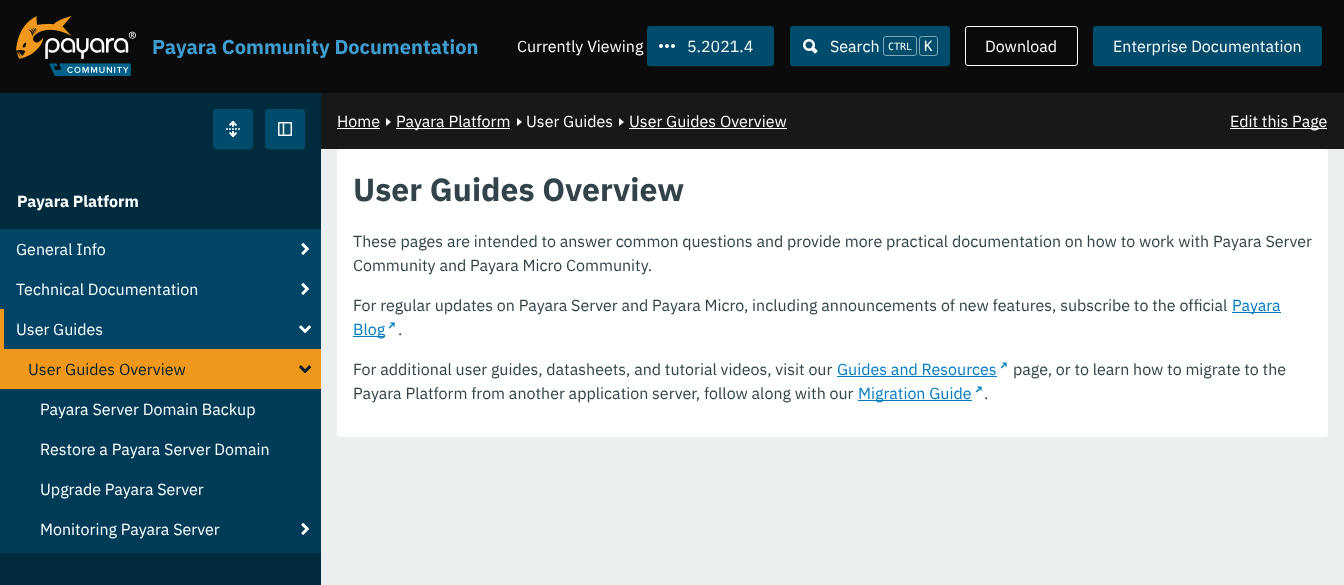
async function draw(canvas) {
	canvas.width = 1344;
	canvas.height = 585;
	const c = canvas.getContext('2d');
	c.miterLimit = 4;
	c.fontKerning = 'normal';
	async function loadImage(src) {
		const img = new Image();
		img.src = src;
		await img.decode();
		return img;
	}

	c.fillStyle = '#002c3e';
	c.fillRect(0, 0, 1344, 585);
	c.fillStyle = '#0b0b0b';
	c.fillRect(0, 0, 1344, 93);
	c.drawImage(await loadImage('img1.png'), 16, 16, 120, 60);
	c.font = 'bold 20px IBM Plex Sans';
	c.fillStyle = '#409dd1';
	c.fillText('Payara Community Documentation', 152, 54);
	c.font = '16px IBM Plex Sans';
	c.fillStyle = '#fff';
	c.fillText('Currently Viewing', 517, 52);
	c.fillStyle = '#171c1e';
	c.beginPath();
	c.moveTo(647, 63);
	c.lineTo(647, 64);
	c.bezierCurveTo(647, 66, 648, 67, 650, 67);
	c.lineTo(771, 67);
	c.bezierCurveTo(773, 67, 774, 66, 774, 64);
	c.lineTo(774, 63);
	c.bezierCurveTo(774, 65, 773, 66, 771, 66);
	c.lineTo(650, 66);
	c.bezierCurveTo(648, 66, 647, 65, 647, 63);
	c.closePath();
	c.fill();
	c.fillStyle = '#004c6c';
	c.beginPath();
	c.roundRect(647, 26, 127, 40, 3);
	c.fill();
	c.drawImage(await loadImage('img2.png'), 659, 44, 16, 4);
	c.fillStyle = '#fff';
	c.fillText('5.2021.4', 687, 52);
	c.fillStyle = '#171c1e';
	c.beginPath();
	c.moveTo(790, 63);
	c.bezierCurveTo(790, 65, 791, 67, 793, 67);
	c.lineTo(948, 67);
	c.bezierCurveTo(950, 67, 950, 65, 950, 63);
	c.bezierCurveTo(950, 65, 949, 66, 947, 66);
	c.lineTo(793, 66);
	c.bezierCurveTo(791, 66, 790, 65, 790, 63);
	c.closePath();
	c.fill();
	c.fillStyle = '#004c6c';
	c.beginPath();
	c.roundRect(790, 26, 160, 40, 3);
	c.fill();
	c.drawImage(await loadImage('img3.png'), 803, 39, 15, 15);
	c.fillStyle = '#fff';
	c.fillText('Search', 830, 52);
	c.beginPath();
	c.roundRect(883.5, 36.5, 33, 19, 2.5);
	c.strokeStyle = '#80a6b6';
	c.stroke();
	c.font = '10px DejaVu Sans Mono';
	c.fillText('CTRL', 888, 50);
	c.beginPath();
	c.roundRect(919.5, 36.5, 18, 19, 2.5);
	c.stroke();
	c.font = '14px DejaVu Sans Mono';
	c.fillText('K', 924, 51);
	c.beginPath();
	c.roundRect(965.5, 26.5, 112, 39, 2.5);
	c.strokeStyle = '#fff';
	c.stroke();
	c.font = '16px IBM Plex Sans';
	c.fillText('Download', 985, 52);
	c.fillStyle = '#171c1e';
	c.beginPath();
	c.moveTo(1093, 63);
	c.lineTo(1093, 64);
	c.bezierCurveTo(1093, 66, 1094, 67, 1096, 67);
	c.lineTo(1319, 67);
	c.bezierCurveTo(1321, 67, 1322, 66, 1322, 64);
	c.lineTo(1322, 63);
	c.bezierCurveTo(1322, 65, 1321, 66, 1319, 66);
	c.lineTo(1096, 66);
	c.bezierCurveTo(1094, 66, 1093, 65, 1093, 63);
	c.closePath();
	c.fill();
	c.fillStyle = '#004c6c';
	c.beginPath();
	c.roundRect(1093, 26, 229, 40, 3);
	c.fill();
	c.fillStyle = '#fff';
	c.fillText('Enterprise Documentation', 1113, 52);
	c.fillStyle = '#0f3342';
	c.beginPath();
	c.moveTo(213, 146);
	c.bezierCurveTo(213, 151, 218, 150, 222, 150);
	c.lineTo(244, 150);
	c.bezierCurveTo(248, 150, 253, 151, 253, 146);
	c.bezierCurveTo(253, 148, 252, 149, 250, 149);
	c.lineTo(216, 149);
	c.bezierCurveTo(214, 149, 213, 148, 213, 146);
	c.closePath();
	c.fill();
	c.fillStyle = '#004c6c';
	c.beginPath();
	c.roundRect(213, 109, 40, 40, 3);
	c.fill();
	c.drawImage(await loadImage('img4.png'), 226, 121, 14, 16);
	c.fillStyle = '#0f3342';
	c.beginPath();
	c.moveTo(265, 146);
	c.bezierCurveTo(265, 151, 270, 150, 274, 150);
	c.lineTo(296, 150);
	c.bezierCurveTo(300, 150, 305, 151, 305, 146);
	c.bezierCurveTo(305, 148, 304, 149, 302, 149);
	c.lineTo(268, 149);
	c.bezierCurveTo(266, 149, 265, 148, 265, 146);
	c.closePath();
	c.fill();
	c.fillStyle = '#004c6c';
	c.beginPath();
	c.roundRect(265, 109, 40, 40, 3);
	c.fill();
	c.drawImage(await loadImage('img5.png'), 278, 122, 15, 14);
	c.font = 'bold 16px IBM Plex Sans';
	c.fillStyle = '#fff';
	c.fillText('Payara Platform', 17, 207);
	c.fillStyle = '#046';
	c.fillRect(0, 229, 321, 80);
	c.font = '16px IBM Plex Sans';
	c.fillStyle = '#fff';
	c.fillText('General Info', 16, 255);
	c.drawImage(await loadImage('img6.png'), 301, 243, 8, 12);
	c.fillText('Technical Documentation', 16, 295);
	c.drawImage(await loadImage('img6.png'), 301, 283, 8, 12);
	c.fillStyle = '#046';
	c.fillRect(4, 309, 317, 40);
	c.fillStyle = '#f0981b';
	c.fillRect(0, 309, 4, 40);
	c.fillStyle = '#fff';
	c.fillText('User Guides', 16, 335);
	c.drawImage(await loadImage('img7.png'), 299, 325, 12, 8);
	c.fillStyle = '#f0981b';
	c.fillRect(0, 349, 321, 40);
	c.fillStyle = '#001f2b';
	c.fillText('User Guides Overview', 28, 375);
	c.drawImage(await loadImage('img8.png'), 299, 365, 12, 8);
	c.fillStyle = '#003c58';
	c.fillRect(0, 389, 321, 164);
	c.fillStyle = '#fff';
	for (const [text, x, y] of [
		['Payara Server Domain Backup', 40, 415],
		['Restore a Payara Server Domain', 40, 455],
		['Upgrade Payara Server', 40, 495],
		['Monitoring Payara Server', 40, 535],
	]) {
		c.fillText(text, x, y);
	}
	c.drawImage(await loadImage('img9.png'), 301, 523, 8, 12);
	c.fillStyle = '#eceff0';
	c.fillRect(321, 149, 1023, 436);
	c.fillStyle = '#171818';
	c.fillRect(321, 93, 1023, 56);
	c.fillStyle = '#fff';
	c.fillText('Home', 337, 127);
	c.fillRect(337, 128, 43, 1);
	c.beginPath();
	c.moveTo(386, 126);
	c.lineTo(386, 118);
	c.lineTo(391, 122);
	c.closePath();
	c.fill();
	c.fillRect(396, 128, 114, 1);
	c.fillText('Payara Platform', 396, 127);
	c.beginPath();
	c.moveTo(517, 126);
	c.lineTo(517, 118);
	c.lineTo(522, 122);
	c.closePath();
	c.fill();
	c.fillText('User Guides', 526, 127);
	c.beginPath();
	c.moveTo(619, 126);
	c.lineTo(619, 118);
	c.lineTo(624, 122);
	c.closePath();
	c.fill();
	c.fillText('User Guides Overview', 629, 127);
	c.fillRect(629, 128, 158, 1);
	c.fillRect(1230, 128, 97, 1);
	c.fillText('Edit this Page', 1230, 127);
	c.beginPath();
	c.roundRect(337, 149, 991, 288, 3);
	c.fill();
	c.font = 'bold 32px IBM Plex Sans';
	c.fillStyle = '#32444a';
	c.fillText('User Guides Overview', 353, 201);
	c.font = '16px IBM Plex Sans';
	for (const [text, x, y] of [
		['These pages are intended to answer common questions and provide more practical documentation on how to work with Payara Server', 353, 247],
		['Community and Payara Micro Community.', 353, 271],
		['For regular updates on Payara Server and Payara Micro, including announcements of new features, subscribe to the official', 353, 311],
	]) {
		c.fillText(text, x, y);
	}
	c.fillStyle = '#007cc2';
	c.fillRect(1232, 312, 49, 1);
	c.fillText('Payara', 1232, 311);
	c.fillRect(353, 336, 32, 1);
	c.fillText('Blog', 353, 335);
	c.font = '11px DejaVu Sans';
	c.save();
	c.translate(391, 331);
	c.rotate(-45 * Math.PI / 180);
	c.fillText('➜', 0, 0);
	c.restore();
	c.font = '16px IBM Plex Sans';
	c.fillStyle = '#32444a';
	c.fillText('.', 398, 335);
	c.fillText('For additional user guides, datasheets, and tutorial videos, visit our', 353, 375);
	c.fillStyle = '#007cc2';
	c.fillText('Guides and Resources', 837, 375);
	c.fillRect(837, 376, 160, 1);
	c.font = '11px DejaVu Sans';
	c.save();
	c.translate(1003, 371);
	c.rotate(-45 * Math.PI / 180);
	c.fillText('➜', 0, 0);
	c.restore();
	c.font = '16px IBM Plex Sans';
	c.fillStyle = '#32444a';
	c.fillText('page, or to learn how to migrate to the', 1013, 375);
	c.fillText('Payara Platform from another application server, follow along with our', 353, 399);
	c.fillStyle = '#007cc2';
	c.fillRect(858, 400, 114, 1);
	c.fillText('Migration Guide', 858, 399);
	c.font = '11px DejaVu Sans';
	c.save();
	c.translate(978, 395);
	c.rotate(-45 * Math.PI / 180);
	c.fillText('➜', 0, 0);
	c.restore();
	c.font = '16px IBM Plex Sans';
	c.fillStyle = '#32444a';
	c.fillText('.', 984, 399);
}

draw(document.querySelector('canvas'));
